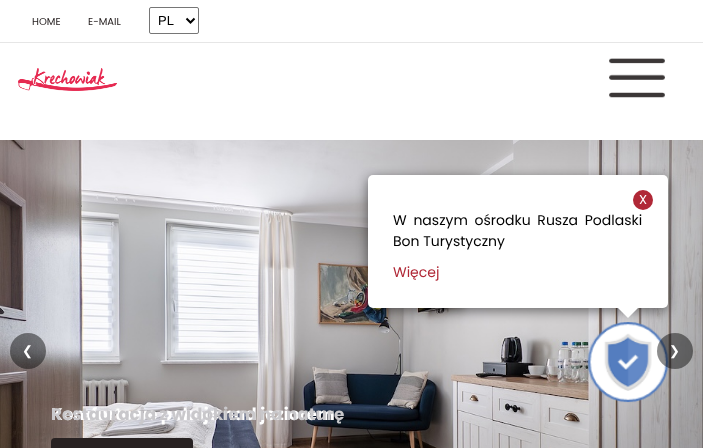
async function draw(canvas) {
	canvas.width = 703;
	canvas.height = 448;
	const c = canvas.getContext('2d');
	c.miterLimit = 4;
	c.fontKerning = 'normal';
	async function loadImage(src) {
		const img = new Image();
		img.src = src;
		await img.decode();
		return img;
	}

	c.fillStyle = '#fff';
	c.fillRect(0, 0, 703, 448);
	c.font = '10px Poppins';
	c.fillStyle = '#282222';
	c.fillText('HOME', 32, 25);
	c.fillText('E-MAIL', 88, 25);
	c.beginPath();
	c.roundRect(149.5, 7.5, 49, 26, 1.5);
	c.strokeStyle = '#767676';
	c.stroke();
	c.beginPath();
	c.moveTo(186.5, 18.5);
	c.lineTo(190.5, 22.5);
	c.lineTo(194.5, 18.5);
	c.strokeStyle = '#000';
	c.lineWidth = 2;
	c.stroke();
	c.font = '13px Liberation Sans';
	c.fillStyle = '#000';
	c.fillText('PL', 158, 25);
	c.fillStyle = '#e6e6e6';
	c.fillRect(0, 42, 703, 1);
	c.drawImage(await loadImage('img1.png'), 18, 68, 99, 23);
	c.drawImage(await loadImage('img2.png'), 609, 58, 56, 40);
	c.drawImage(await loadImage('img4.png'), 0, 140, 703, 308);
	c.drawImage(await loadImage('img3.png'), 587, 322, 82, 81);
	c.fillStyle = '#00000080';
	c.filter = 'blur(6px)';
	c.beginPath();
	c.roundRect(368, 178, 300, 133, 5);
	c.fill();
	c.filter = 'none';
	c.fillStyle = '#fff';
	c.beginPath();
	c.roundRect(368, 175, 300, 133, 5);
	c.fill();
	c.fillStyle = '#b02836';
	c.beginPath();
	c.arc(643, 200, 10, 0, 2 * Math.PI);
	c.fill();
	c.font = '13px Poppins';
	c.fillStyle = '#fff';
	c.fillText('X', 639, 204);
	c.wordSpacing = '3px';
	c.font = '14px Poppins';
	c.fillStyle = '#000';
	c.fillText('W naszym ośrodku Rusza Podlaski', 393, 225);
	c.wordSpacing = '0px';
	c.fillText('Bon Turystyczny', 393, 246);
	c.fillStyle = '#b02836';
	c.fillText('Więcej', 393, 277);
	c.fillStyle = '#fff';
	c.beginPath();
	c.moveTo(618, 308);
	c.lineTo(638, 308);
	c.lineTo(628, 318);
	c.closePath();
	c.fill();
	c.fillStyle = '#00000073';
	c.beginPath();
	c.arc(28, 351, 18, 0, 2 * Math.PI);
	c.fill();
	c.font = '13px DejaVu Sans';
	c.fillStyle = '#fff';
	c.fillText('❮', 22, 355);
	c.fillStyle = '#00000073';
	c.beginPath();
	c.arc(675, 351, 18, 0, 2 * Math.PI);
	c.fill();
	c.fillStyle = '#fff';
	c.fillText('❯', 669, 355);
	c.font = 'bold 16.75px Poppins';
	c.fillText('Komfortowe pokoje nad jeziorem', 51, 420);
	c.fillStyle = '#282222';
	c.beginPath();
	c.roundRect(51, 438, 142, 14, 4);
	c.fill();
	c.fillStyle = '#c9c8cb';
	c.fillText('Restauracja z widokiem na naturę', 51, 420);
}

draw(document.querySelector('canvas'));
